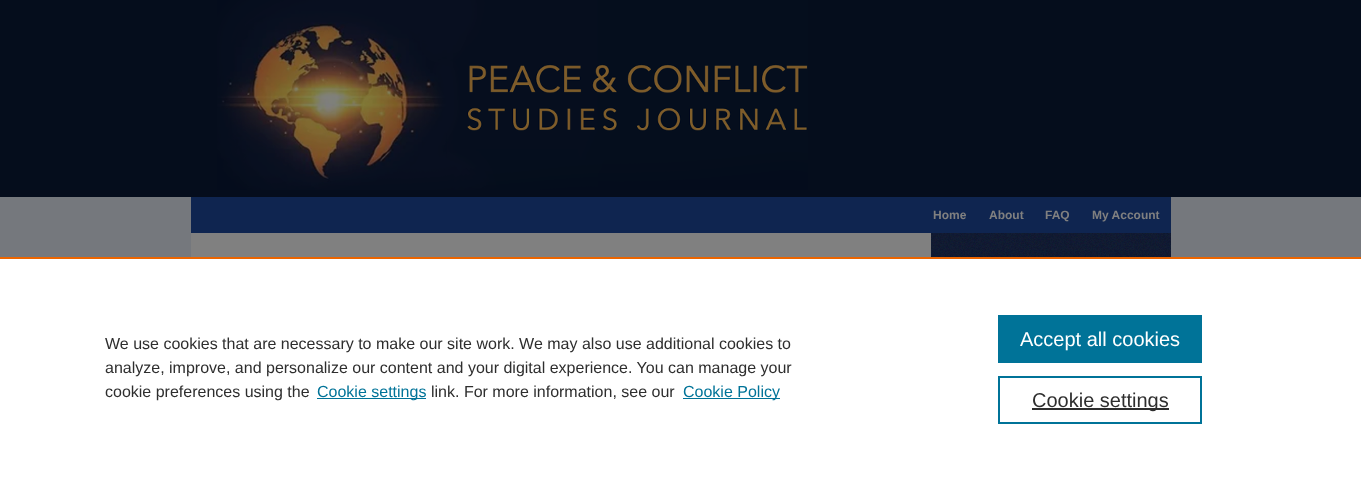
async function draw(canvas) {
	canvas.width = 1361;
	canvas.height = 477;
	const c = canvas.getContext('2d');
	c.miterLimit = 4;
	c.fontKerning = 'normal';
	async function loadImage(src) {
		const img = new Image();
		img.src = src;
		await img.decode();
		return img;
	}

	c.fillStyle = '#75787d';
	c.fillRect(0, 0, 1361, 477);
	c.fillStyle = '#050d1c';
	c.fillRect(0, 0, 1361, 197);
	c.drawImage(await loadImage('img1.png'), 217, 0, 591, 190);
	c.fillStyle = '#0f2550';
	c.fillRect(191, 197, 980, 36);
	c.font = 'bold 12px Liberation Sans';
	c.fillStyle = '#808080';
	for (const [text, x, y] of [
		['Home', 933, 219],
		['About', 989, 219],
		['FAQ', 1045, 219],
		['My Account', 1092, 219],
	]) {
		c.fillText(text, x, y);
	}
	c.drawImage(await loadImage('img2.png'), 191, 233, 980, 24);
	c.fillStyle = '#fff';
	c.fillRect(0, 259, 1361, 218);
	c.fillStyle = '#eb6500';
	c.fillRect(0, 257, 1361, 2);
	c.font = '16px Liberation Sans';
	c.fillStyle = '#2e2e2e';
	for (const [text, x, y] of [
		['We use cookies that are necessary to make our site work. We may also use additional cookies to', 105, 349],
		['analyze, improve, and personalize our content and your digital experience. You can manage your', 105, 373],
		['cookie preferences using the', 105, 397],
	]) {
		c.fillText(text, x, y);
	}
	c.fillStyle = '#007398';
	c.fillRect(317, 398, 109, 1);
	c.fillText('Cookie settings', 317, 397);
	c.fillStyle = '#2e2e2e';
	c.fillText('link. For more information, see our', 431, 397);
	c.fillStyle = '#007398';
	c.fillRect(683, 398, 97, 1);
	c.fillText('Cookie Policy', 683, 397);
	c.fillRect(998, 315, 204, 48);
	c.font = '20px Liberation Sans';
	c.fillStyle = '#fff';
	c.fillText('Accept all cookies', 1020, 346);
	c.strokeStyle = '#007398';
	c.lineWidth = 2;
	c.strokeRect(999, 377, 202, 46);
	c.fillStyle = '#2e2e2e';
	c.fillRect(1032, 408, 137, 2);
	c.fillText('Cookie settings', 1032, 407);
}

draw(document.querySelector('canvas'));
